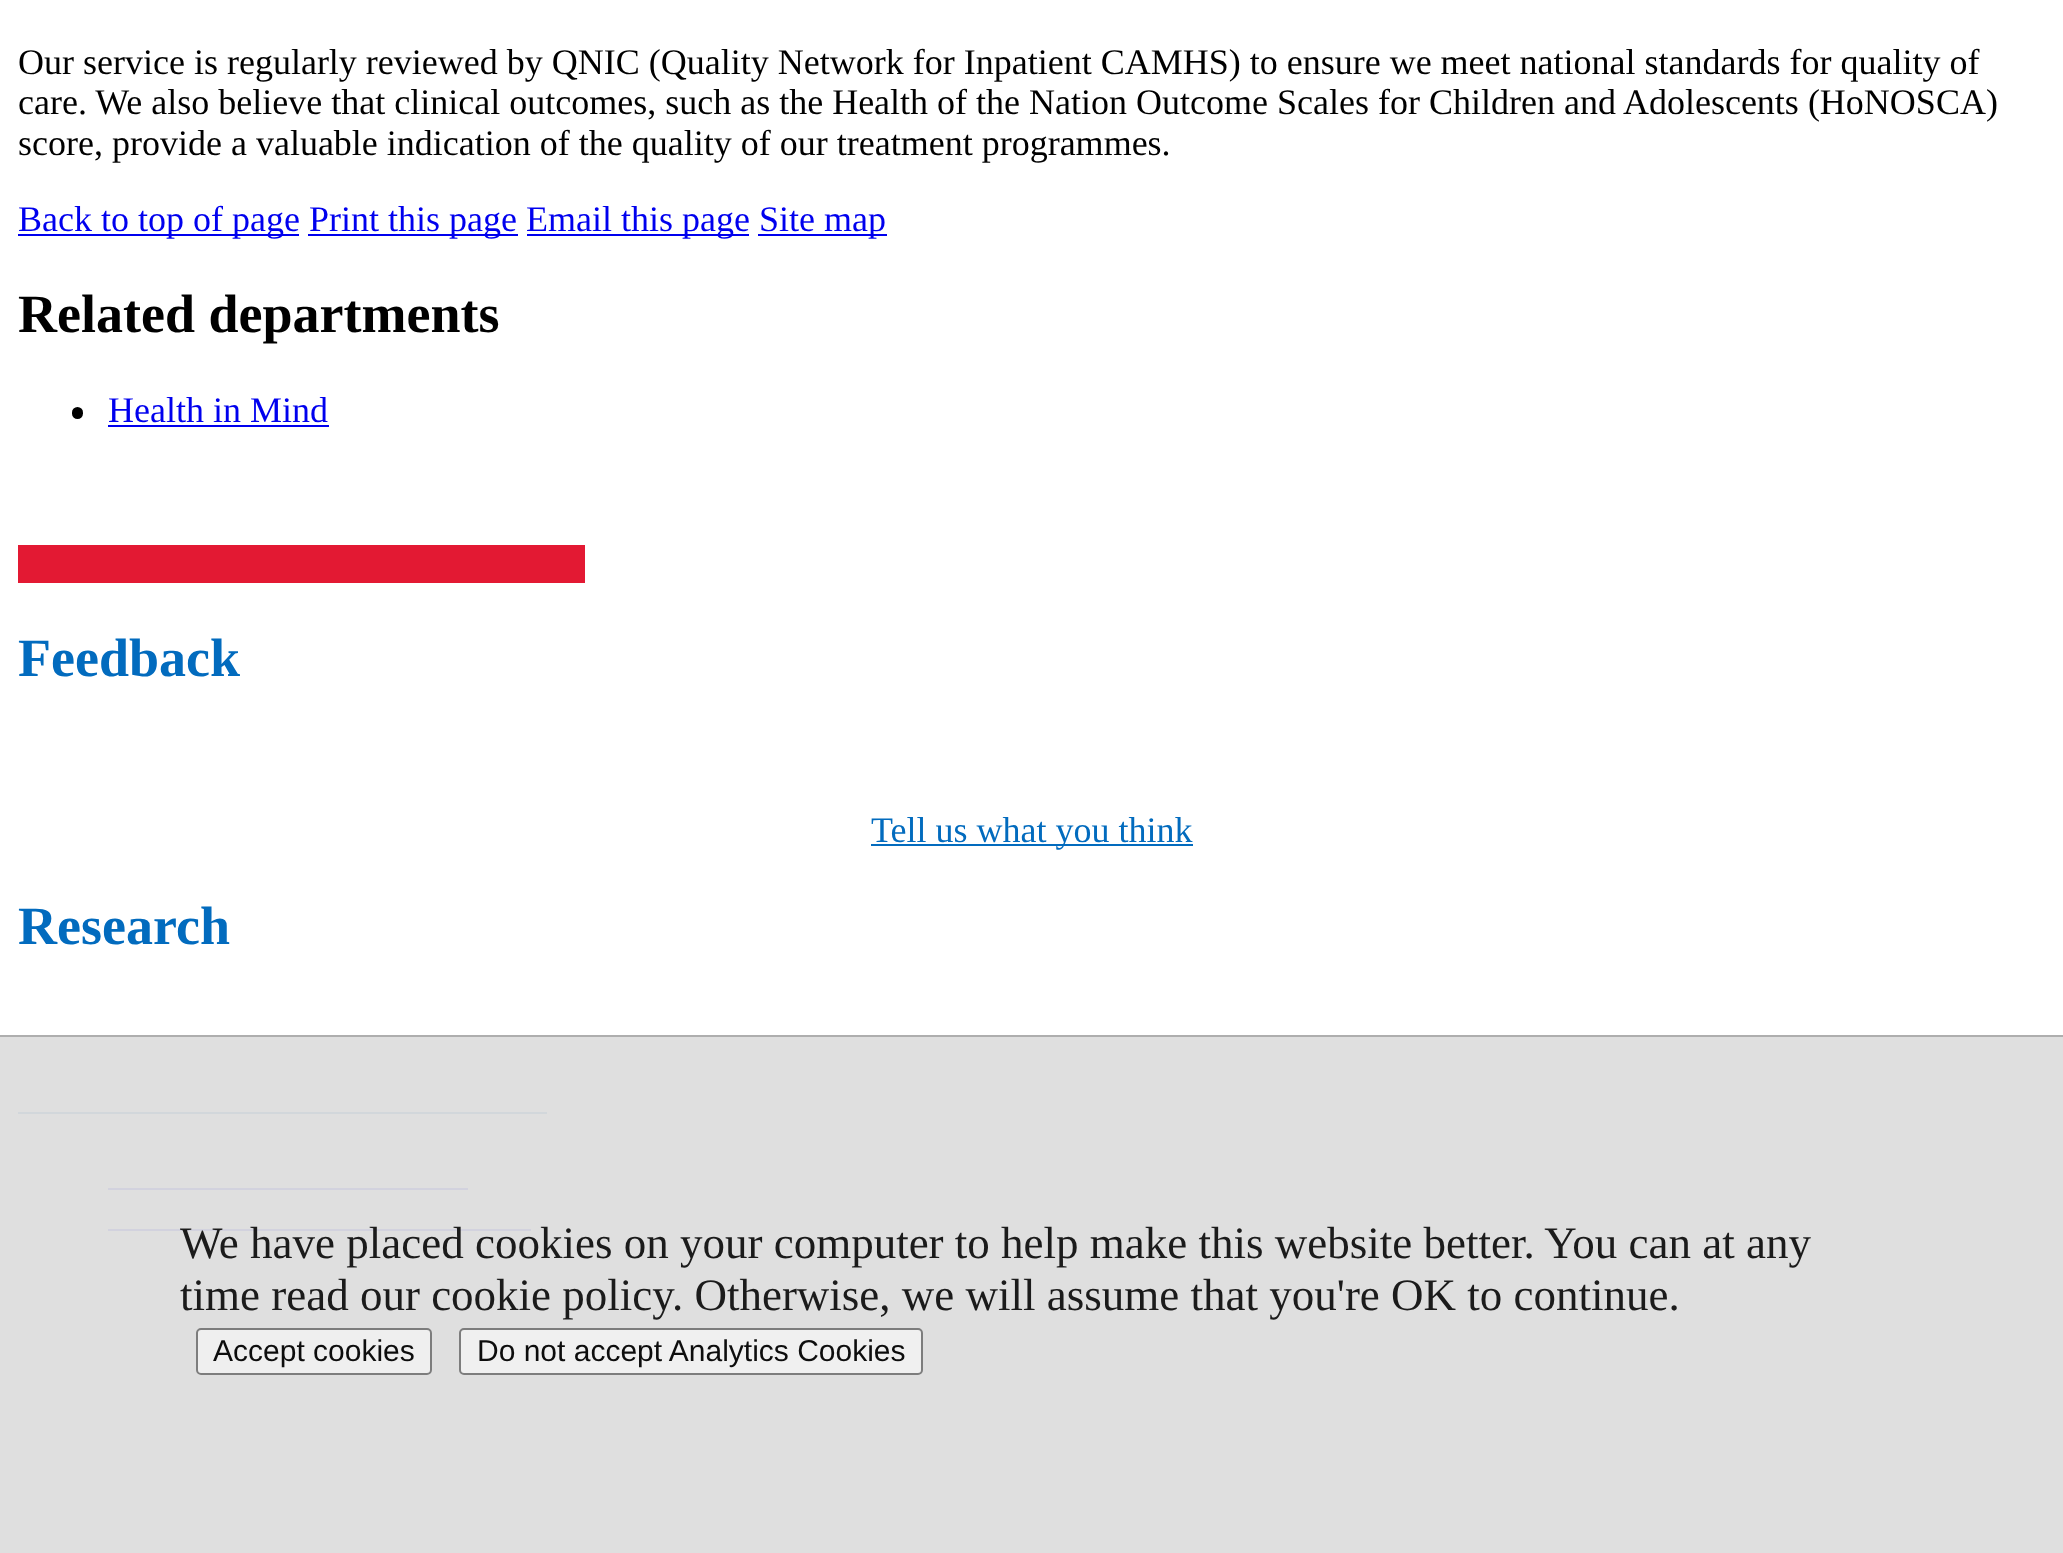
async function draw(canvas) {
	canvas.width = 2063;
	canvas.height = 1553;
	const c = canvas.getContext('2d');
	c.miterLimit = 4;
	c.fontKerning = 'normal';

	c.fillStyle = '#fff';
	c.fillRect(0, 0, 2063, 1553);
	c.fillStyle = '#dfdfdf';
	c.fillRect(0, 1037, 2063, 516);
	c.font = '36px Liberation Serif';
	c.fillStyle = '#000';
	for (const [text, x, y] of [
		['Our service is regularly reviewed by QNIC (Quality Network for Inpatient CAMHS) to ensure we meet national standards for quality of', 18, 74],
		['care. We also believe that clinical outcomes, such as the Health of the Nation Outcome Scales for Children and Adolescents (HoNOSCA)', 18, 114],
		['score, provide a valuable indication of the quality of our treatment programmes.', 18, 155],
	]) {
		c.fillText(text, x, y);
	}
	c.fillStyle = '#00e';
	c.fillRect(18, 234, 281, 2);
	c.fillText('Back to top of page', 18, 231);
	c.fillRect(308, 234, 210, 2);
	c.fillText('Print this page', 309, 231);
	c.fillRect(527, 234, 222, 2);
	c.fillText('Email this page', 526, 231);
	c.fillRect(758, 234, 129, 2);
	c.fillText('Site map', 759, 231);
	c.font = 'bold 54px Liberation Serif';
	c.fillStyle = '#000';
	c.fillText('Related departments', 18, 332);
	c.beginPath();
	c.roundRect(72, 407, 11, 12, 5.5);
	c.fill();
	c.font = '36px Liberation Serif';
	c.fillStyle = '#00e';
	c.fillText('Health in Mind', 108, 422);
	c.fillRect(108, 425, 221, 2);
	c.fillStyle = '#e31933';
	c.fillRect(18, 545, 567, 38);
	c.font = 'bold 54px Liberation Serif';
	c.fillStyle = '#026bbe';
	c.fillText('Feedback', 18, 676);
	c.fillRect(871, 844, 322, 2);
	c.font = '36px Liberation Serif';
	c.fillText('Tell us what you think', 871, 842);
	c.font = 'bold 54px Liberation Serif';
	c.fillText('Research', 18, 944);
	for (const [x, y, w, h, color] of [
		[18, 1112, 529, 2, '#d2d7db'],
		[108, 1188, 360, 2, '#d2d2de'],
		[108, 1229, 423, 2, '#d2d2de'],
		[0, 1035, 2063, 2, '#aeaeae'],
	]) {
		c.fillStyle = color;
		c.fillRect(x, y, w, h);
	}
	c.font = '45px Liberation Serif';
	c.fillStyle = '#1b1b1b';
	c.fillText('We have placed cookies on your computer to help make this website better. You can at any', 180, 1258);
	c.fillText('time read our cookie policy. Otherwise, we will assume that you\'re OK to continue.', 180, 1310);
	c.fillStyle = '#efefeff2';
	c.beginPath();
	c.roundRect(196, 1328, 236, 47, 5);
	c.fill();
	c.beginPath();
	c.roundRect(197, 1329, 234, 45, 4);
	c.strokeStyle = '#767676f2';
	c.lineWidth = 2;
	c.stroke();
	c.font = '30px Liberation Sans';
	c.fillStyle = '#0d0d0d';
	c.fillText('Accept cookies', 213, 1361);
	c.fillStyle = '#f0f0f0';
	c.beginPath();
	c.roundRect(460, 1329, 462, 45, 4);
	c.fill();
	c.strokeStyle = '#7d7d7d';
	c.stroke();
	c.fillStyle = '#0d0d0d';
	c.fillText('Do not accept Analytics Cookies', 477, 1361);
}

draw(document.querySelector('canvas'));
